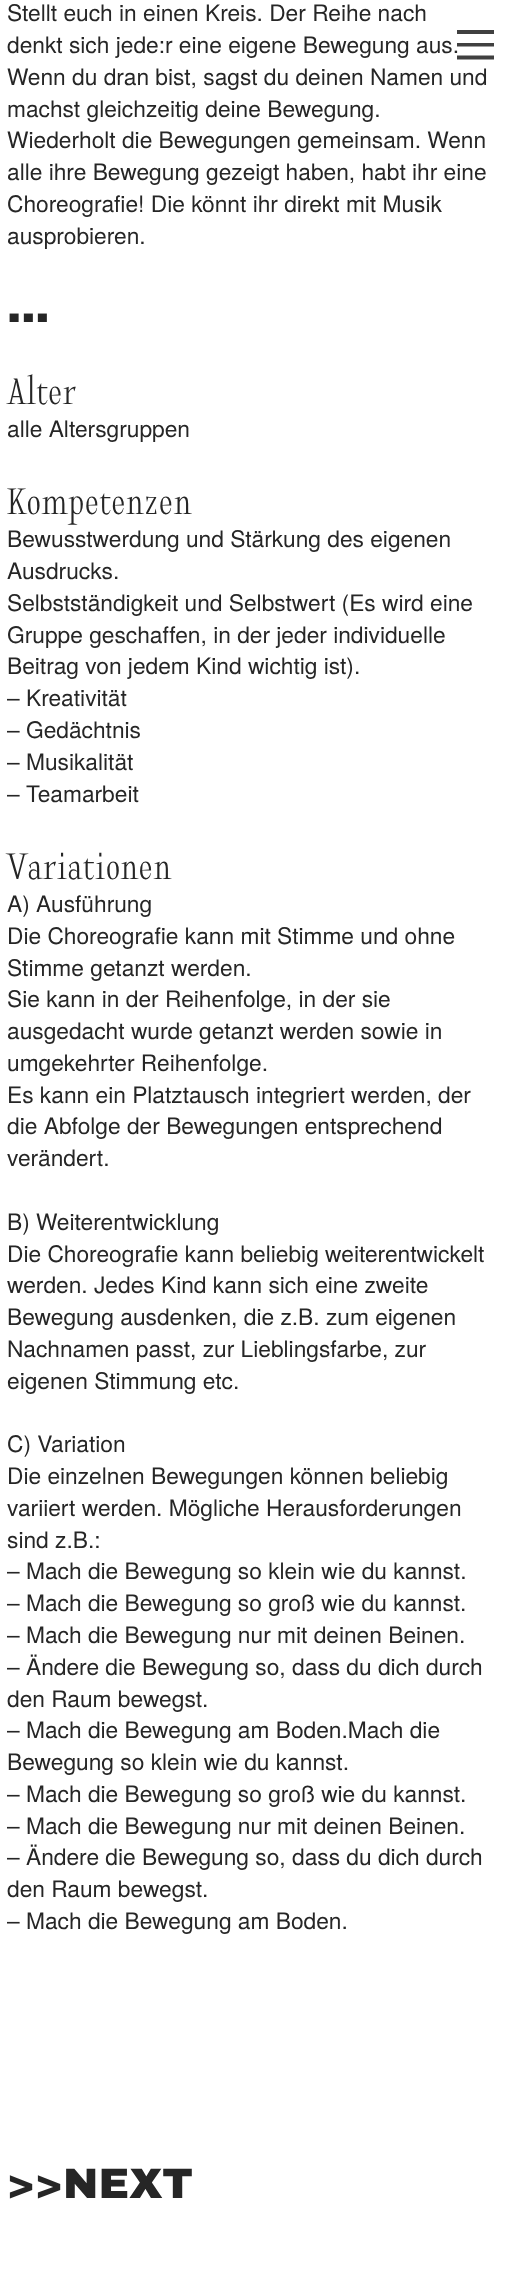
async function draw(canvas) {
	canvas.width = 522;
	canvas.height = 2270;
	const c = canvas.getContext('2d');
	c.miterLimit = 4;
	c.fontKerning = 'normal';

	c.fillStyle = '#fff';
	c.fillRect(0, 0, 522, 2270);
	c.font = '22.75px TeX Gyre Heros';
	c.fillStyle = '#262626';
	for (const [text, x, y] of [
		['Stellt euch in einen Kreis. Der Reihe nach', 7, 21],
		['denkt sich jede:r eine eigene Bewegung aus.', 7, 53],
		['Wenn du dran bist, sagst du deinen Namen und', 7, 85],
		['machst gleichzeitig deine Bewegung.', 7, 117],
		['Wiederholt die Bewegungen gemeinsam. Wenn', 7, 148],
		['alle ihre Bewegung gezeigt haben, habt ihr eine', 7, 180],
		['Choreografie! Die könnt ihr direkt mit Musik', 7, 212],
		['ausprobieren.', 7, 244],
	]) {
		c.fillText(text, x, y);
	}
	c.font = '900 42.5px Archivo Black';
	c.fillText('...', 7, 322);
	c.font = '42.5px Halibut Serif';
	c.fillText('Alter', 7, 404);
	c.font = '22.75px TeX Gyre Heros';
	c.fillText('alle Altersgruppen', 7, 437);
	c.font = '42.5px Halibut Serif';
	c.fillText('Kompetenzen', 7, 514);
	c.font = '22.75px TeX Gyre Heros';
	for (const [text, x, y] of [
		['Bewusstwerdung und Stärkung des eigenen', 7, 547],
		['Ausdrucks.', 7, 579],
		['Selbstständigkeit und Selbstwert (Es wird eine', 7, 611],
		['Gruppe geschaffen, in der jeder individuelle', 7, 643],
		['Beitrag von jedem Kind wichtig ist).', 7, 674],
		['– Kreativität', 7, 706],
		['– Gedächtnis', 7, 738],
		['– Musikalität', 7, 770],
		['– Teamarbeit', 7, 802],
	]) {
		c.fillText(text, x, y);
	}
	c.font = '42.5px Halibut Serif';
	c.fillText('Variationen', 7, 879);
	c.font = '22.75px TeX Gyre Heros';
	for (const [text, x, y] of [
		['A) Ausführung', 7, 912],
		['Die Choreografie kann mit Stimme und ohne', 7, 944],
		['Stimme getanzt werden.', 7, 976],
		['Sie kann in der Reihenfolge, in der sie', 7, 1007],
		['ausgedacht wurde getanzt werden sowie in', 7, 1039],
		['umgekehrter Reihenfolge.', 7, 1071],
		['Es kann ein Platztausch integriert werden, der', 7, 1103],
		['die Abfolge der Bewegungen entsprechend', 7, 1134],
		['verändert.', 7, 1166],
		['B) Weiterentwicklung', 7, 1230],
		['Die Choreografie kann beliebig weiterentwickelt', 7, 1262],
		['werden. Jedes Kind kann sich eine zweite', 7, 1293],
		['Bewegung ausdenken, die z.B. zum eigenen', 7, 1325],
		['Nachnamen passt, zur Lieblingsfarbe, zur', 7, 1357],
		['eigenen Stimmung etc.', 7, 1389],
		['C) Variation', 7, 1452],
		['Die einzelnen Bewegungen können beliebig', 7, 1484],
		['variiert werden. Mögliche Herausforderungen', 7, 1516],
		['sind z.B.:', 7, 1548],
		['– Mach die Bewegung so klein wie du kannst.', 7, 1579],
		['– Mach die Bewegung so groß wie du kannst.', 7, 1611],
		['– Mach die Bewegung nur mit deinen Beinen.', 7, 1643],
		['– Ändere die Bewegung so, dass du dich durch', 7, 1675],
		['den Raum bewegst.', 7, 1707],
		['– Mach die Bewegung am Boden.Mach die', 7, 1738],
		['Bewegung so klein wie du kannst.', 7, 1770],
		['– Mach die Bewegung so groß wie du kannst.', 7, 1802],
		['– Mach die Bewegung nur mit deinen Beinen.', 7, 1834],
		['– Ändere die Bewegung so, dass du dich durch', 7, 1865],
		['den Raum bewegst.', 7, 1897],
		['– Mach die Bewegung am Boden.', 7, 1929],
	]) {
		c.fillText(text, x, y);
	}
	c.font = '900 42.5px Archivo Black';
	c.fillText('>>NEXT', 7, 2198);
	c.fillStyle = '#404040';
	c.beginPath();
	c.moveTo(494, 30);
	c.lineTo(494, 34);
	c.lineTo(457, 34);
	c.lineTo(457, 30);
	c.closePath();
	c.moveTo(494, 43);
	c.lineTo(494, 46.5);
	c.lineTo(457, 46.5);
	c.lineTo(457, 43);
	c.closePath();
	c.moveTo(494, 55.5);
	c.lineTo(494, 59.5);
	c.lineTo(457, 59.5);
	c.lineTo(457, 55.5);
	c.closePath();
	c.fill();
}

draw(document.querySelector('canvas'));
